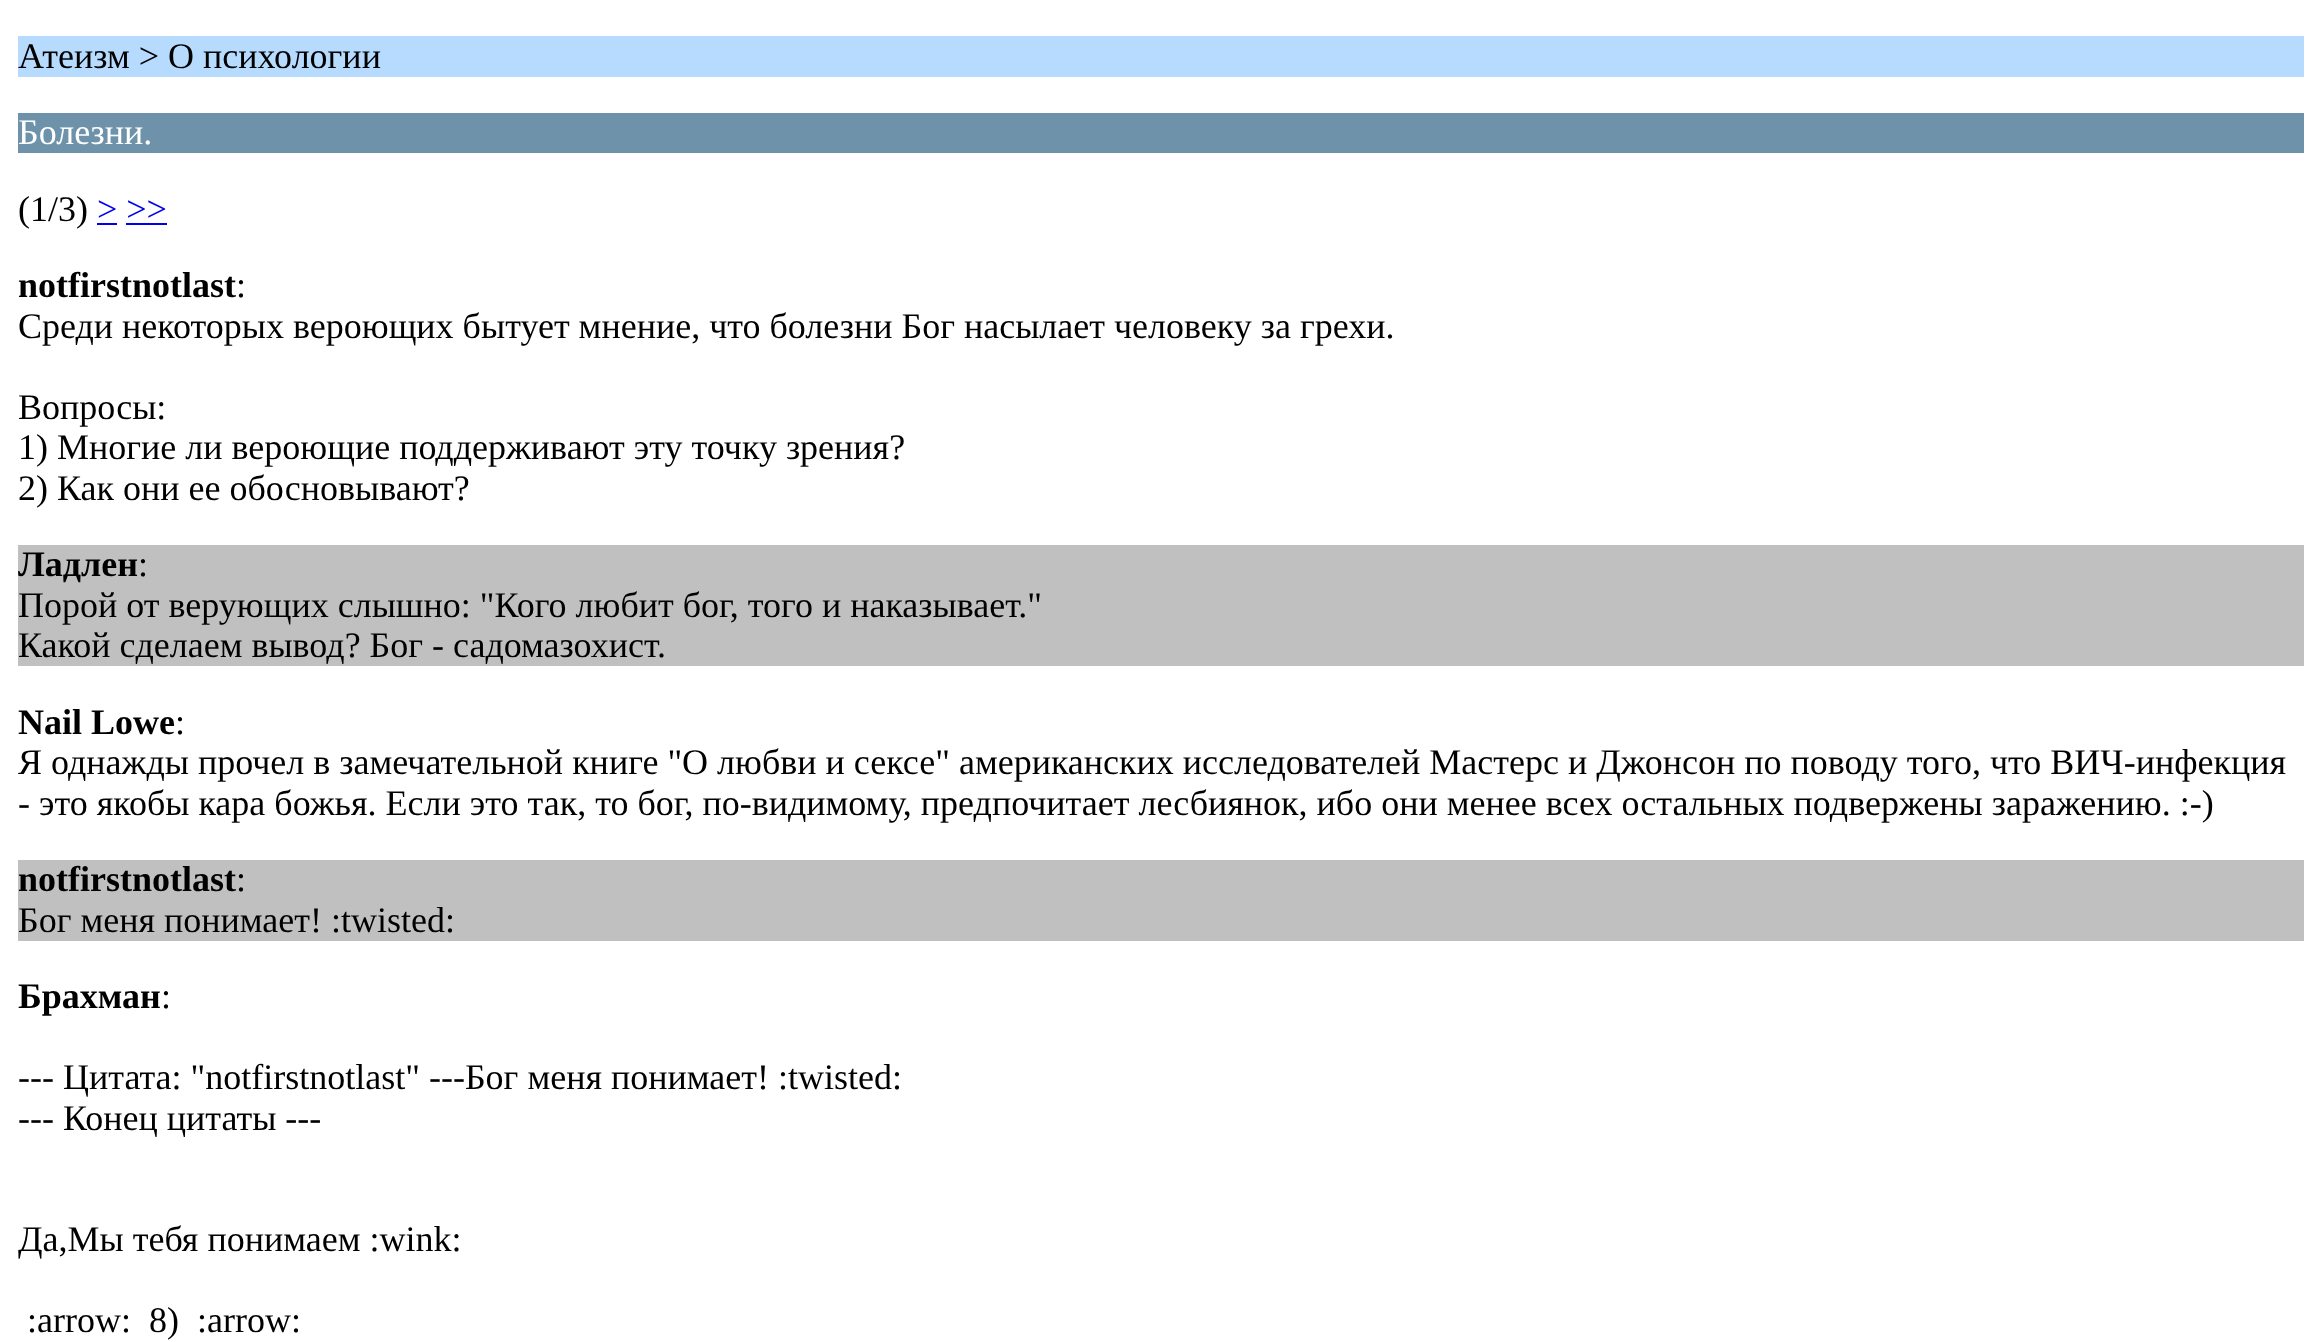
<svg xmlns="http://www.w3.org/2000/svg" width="2322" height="1342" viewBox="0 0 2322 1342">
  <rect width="100%" height="100%" fill="rgb(255,255,255)"/>
  <rect x="18" y="36" width="2286" height="41" fill="rgb(182,219,255)"/>
  <text x="18" y="68" font-family="Liberation Serif" font-size="36" fill="rgb(0,0,0)">Атеизм &gt; О психологии</text>
  <rect x="18" y="113" width="2286" height="40" fill="rgb(109,146,170)"/>
  <text x="18" y="144" font-family="Liberation Serif" font-size="36" fill="rgb(255,255,255)">Болезни.</text>
  <text x="18" y="221" font-family="Liberation Serif" font-size="36" fill="rgb(0,0,0)">(1/3)</text>
  <text x="97" y="221" font-family="Liberation Serif" font-size="36" fill="rgb(0,0,238)">&gt; &gt;&gt;</text>
  <rect x="97" y="223" width="20" height="2" fill="rgb(0,0,238)"/>
  <rect x="126" y="223" width="41" height="2" fill="rgb(0,0,238)"/>
  <text x="18" y="297" font-family="Liberation Serif" font-size="36" font-weight="bold" fill="rgb(0,0,0)">notfirstnotlast</text>
  <g font-family="Liberation Serif" font-size="36" fill="rgb(0,0,0)">
    <text x="236" y="297">:</text>
    <text x="18" y="338">Среди некоторых вероющих бытует мнение, что болезни Бог насылает человеку за грехи.</text>
    <text>
      <tspan x="18" y="419">Вопросы:</tspan>
      <tspan x="18" y="459">1) Многие ли вероющие поддерживают эту точку зрения?</tspan>
      <tspan x="18" y="500">2) Как они ее обосновывают?</tspan>
    </text>
  </g>
  <rect x="18" y="545" width="2286" height="121" fill="rgb(192,192,192)"/>
  <text x="18" y="576" font-family="Liberation Serif" font-size="36" font-weight="bold" fill="rgb(0,0,0)">Ладлен</text>
  <g font-family="Liberation Serif" font-size="36" fill="rgb(0,0,0)">
    <text x="138" y="576">:</text>
    <text>
      <tspan x="18" y="617">Порой от верующих слышно: "Кого любит бог, того и наказывает."</tspan>
      <tspan x="18" y="657">Какой сделаем вывод? Бог - садомазохист.</tspan>
    </text>
  </g>
  <text x="18" y="734" font-family="Liberation Serif" font-size="36" font-weight="bold" fill="rgb(0,0,0)">Nail Lowe</text>
  <g font-family="Liberation Serif" font-size="36" fill="rgb(0,0,0)">
    <text x="175" y="734">:</text>
    <text>
      <tspan x="18" y="774">Я однажды прочел в замечательной книге "О любви и сексе" американских исследователей Мастерс и Джонсон по поводу того, что ВИЧ-инфекция</tspan>
      <tspan x="18" y="815">- это якобы кара божья. Если это так, то бог, по-видимому, предпочитает лесбиянок, ибо они менее всех остальных подвержены заражению. :-)</tspan>
    </text>
  </g>
  <rect x="18" y="860" width="2286" height="81" fill="rgb(192,192,192)"/>
  <text x="18" y="891" font-family="Liberation Serif" font-size="36" font-weight="bold" fill="rgb(0,0,0)">notfirstnotlast</text>
  <g font-family="Liberation Serif" font-size="36" fill="rgb(0,0,0)">
    <text x="236" y="891">:</text>
    <text x="18" y="932">Бог меня понимает! :twisted:</text>
  </g>
  <text x="18" y="1008" font-family="Liberation Serif" font-size="36" font-weight="bold" fill="rgb(0,0,0)">Брахман</text>
  <g font-family="Liberation Serif" font-size="36" fill="rgb(0,0,0)">
    <text x="161" y="1008">:</text>
    <text>
      <tspan x="18" y="1089">--- Цитата: "notfirstnotlast" ---Бог меня понимает! :twisted:</tspan>
      <tspan x="18" y="1130">--- Конец цитаты ---</tspan>
    </text>
    <text x="18" y="1251">Да,Мы тебя понимаем :wink:</text>
    <text x="27" y="1332" xml:space="preserve">:arrow:  8)  :arrow:</text>
  </g>
</svg>
